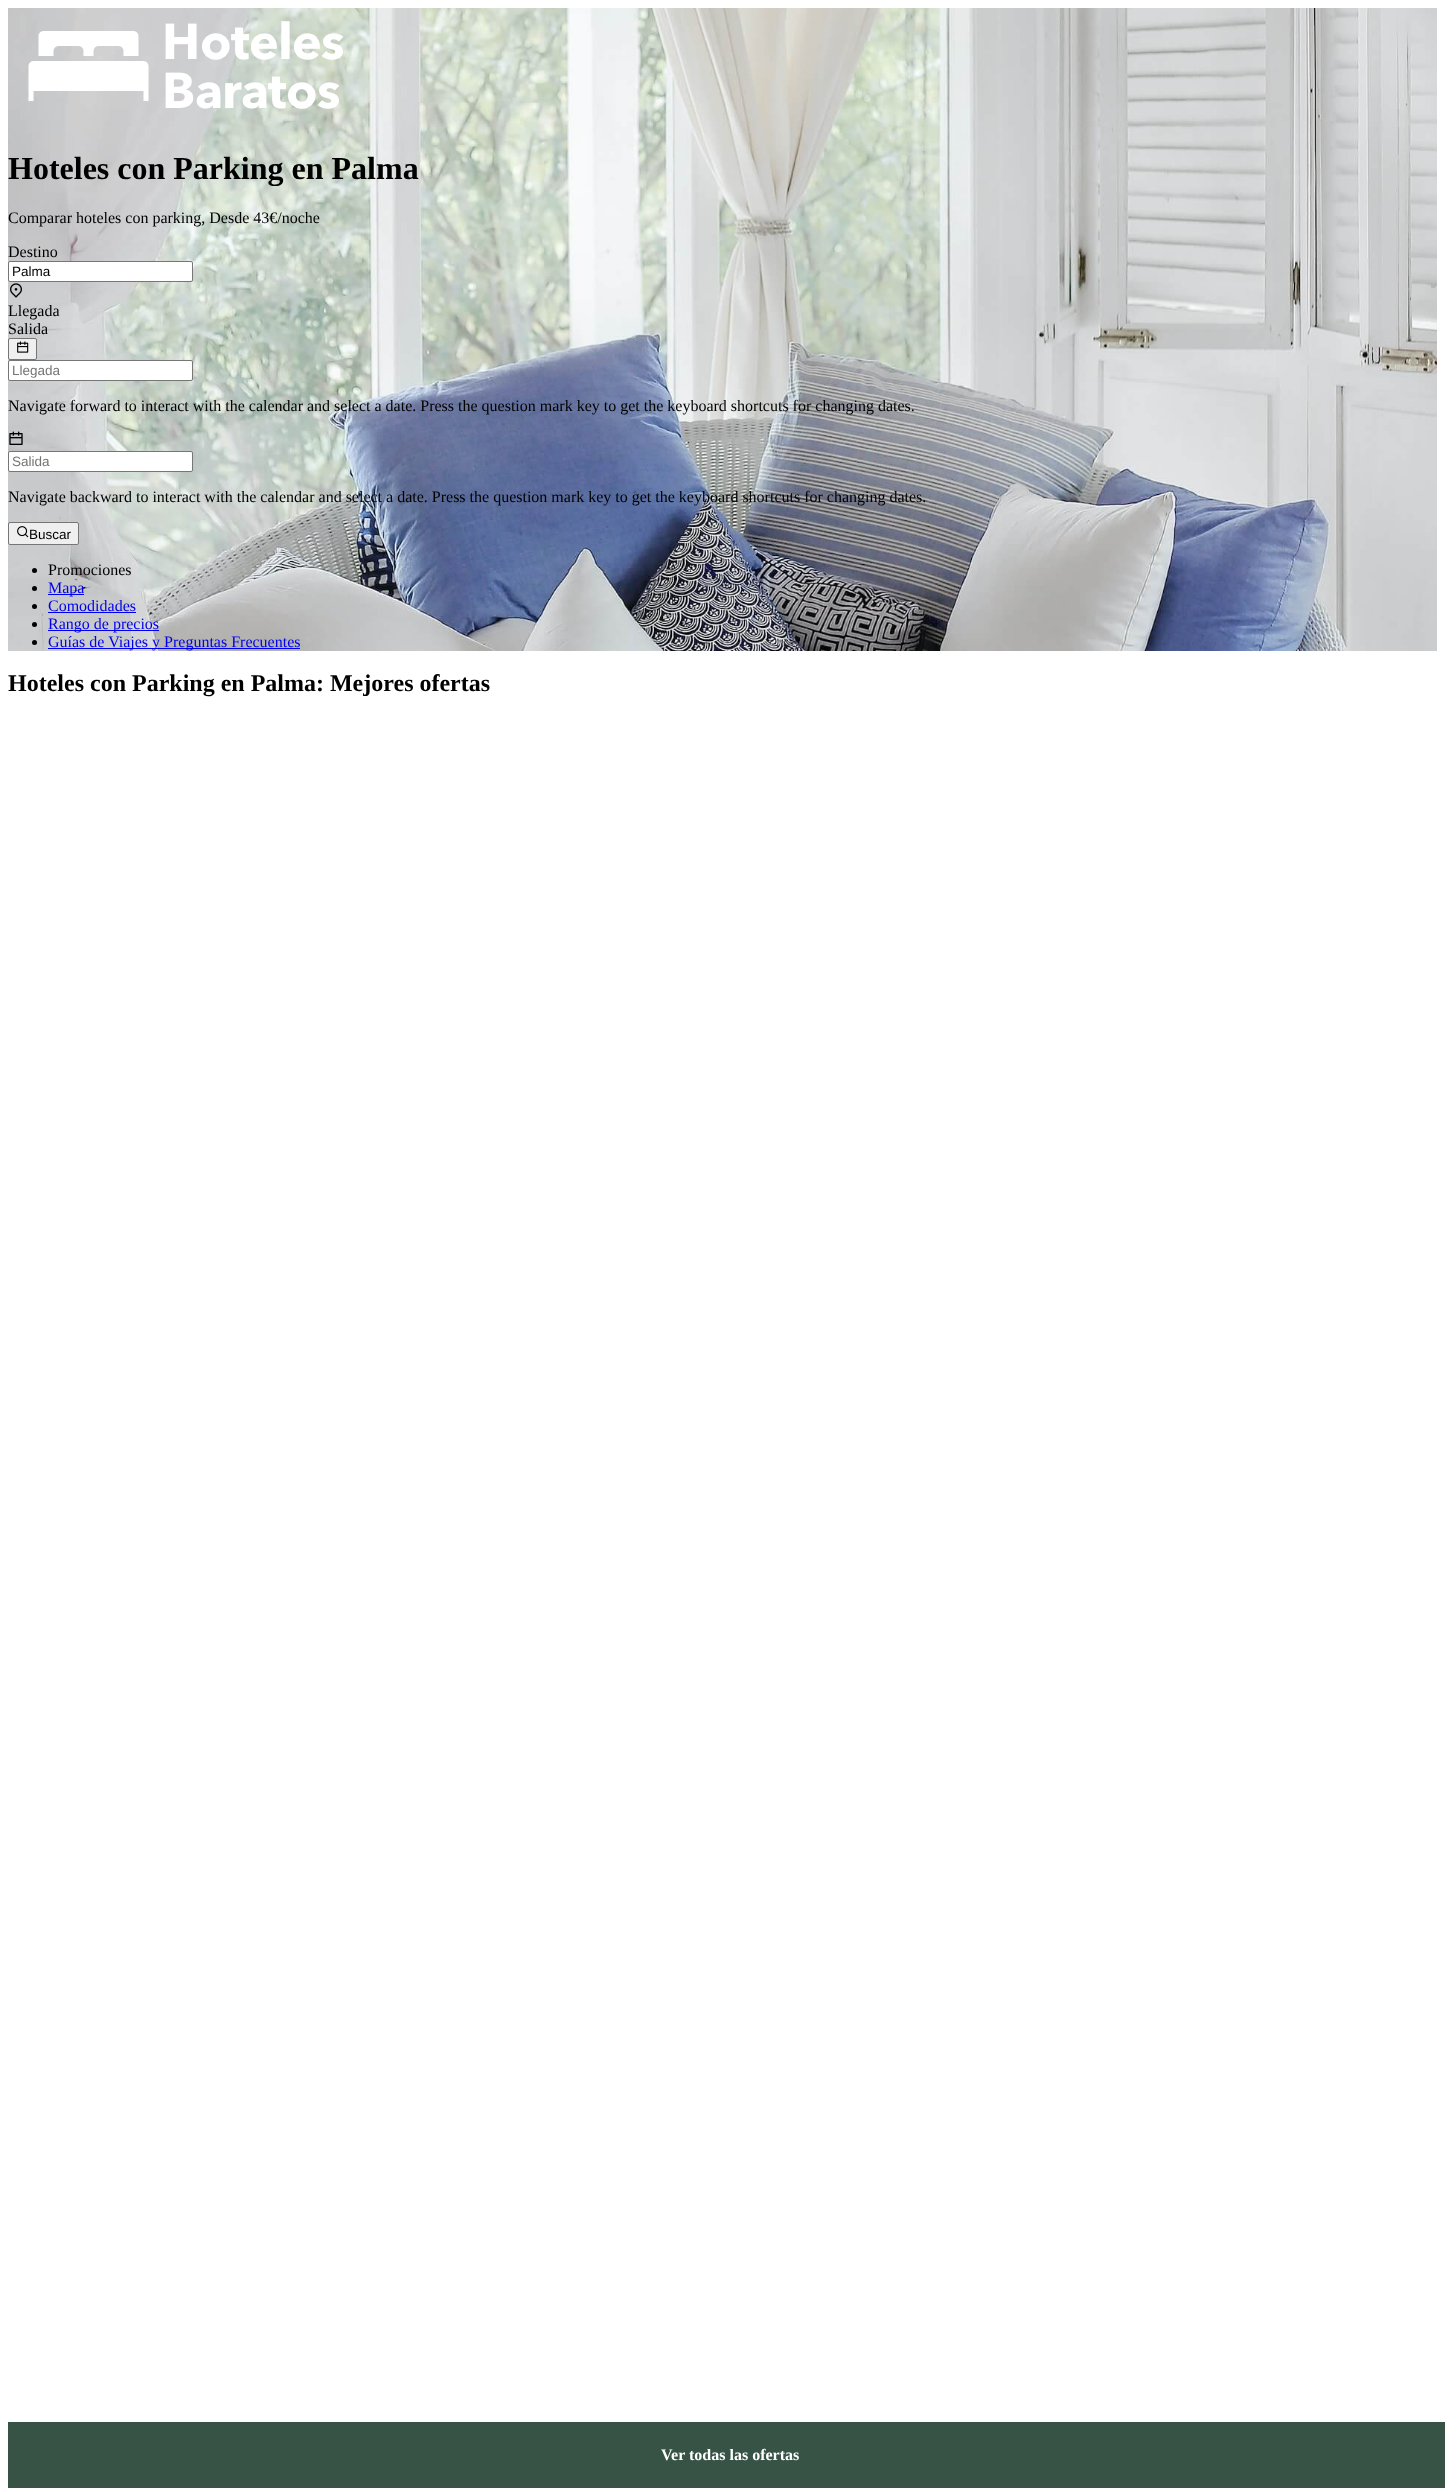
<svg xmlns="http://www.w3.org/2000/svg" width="1445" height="2488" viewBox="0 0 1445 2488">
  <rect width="100%" height="100%" fill="rgb(255,255,255)"/>
  <image x="8" y="8" width="1429" height="643" href="pic1.png"/>
  <image x="28" y="21" width="316" height="88" href="pic2.png"/>
  <text x="8" y="179" font-family="Liberation Serif" font-size="32" font-weight="bold" fill="rgb(0,0,0)">Hoteles con Parking en Palma</text>
  <g font-family="Liberation Serif" font-size="16" fill="rgb(0,0,0)">
    <text x="8" y="223">Comparar hoteles con parking, Desde 43€/noche</text>
    <text x="8" y="257">Destino</text>
  </g>
  <rect x="8.5" y="261.5" width="184" height="20" rx="1.5" fill="rgb(255,255,255)" stroke="rgb(118,118,118)"/>
  <text x="12" y="276" font-family="Liberation Sans" font-size="13.5" fill="rgb(0,0,0)">Palma</text>
  <image x="10" y="283" width="12" height="15" href="pic3.png"/>
  <g font-family="Liberation Serif" font-size="16" fill="rgb(0,0,0)">
    <text>
      <tspan x="8" y="316">Llegada</tspan>
      <tspan x="8" y="334">Salida</tspan>
    </text>
  </g>
  <rect x="8.5" y="338.5" width="28" height="21" rx="1.5" fill="rgb(239,239,239)" stroke="rgb(118,118,118)"/>
  <image x="17" y="341" width="12" height="12" href="pic4.png"/>
  <rect x="8.5" y="360.5" width="184" height="20" rx="1.5" fill="rgb(255,255,255)" stroke="rgb(118,118,118)"/>
  <text x="12" y="375" font-family="Liberation Sans" font-size="13.5" fill="rgb(117,117,117)">Llegada</text>
  <text x="8" y="411" font-family="Liberation Serif" font-size="16" fill="rgb(0,0,0)">Navigate forward to interact with the calendar and select a date. Press the question mark key to get the keyboard shortcuts for changing dates.</text>
  <image x="9" y="431" width="14" height="14" href="pic5.png"/>
  <rect x="8.5" y="451.5" width="184" height="20" rx="1.5" fill="rgb(255,255,255)" stroke="rgb(118,118,118)"/>
  <text x="12" y="466" font-family="Liberation Sans" font-size="13.5" fill="rgb(117,117,117)">Salida</text>
  <text x="8" y="502" font-family="Liberation Serif" font-size="16" fill="rgb(0,0,0)">Navigate backward to interact with the calendar and select a date. Press the question mark key to get the keyboard shortcuts for changing dates.</text>
  <rect x="8.5" y="522.5" width="70" height="22" rx="1.5" fill="rgb(239,239,239)" stroke="rgb(118,118,118)"/>
  <image x="17" y="526" width="12" height="12" href="pic6.png"/>
  <text x="29" y="539" font-family="Liberation Sans" font-size="13.5" fill="rgb(0,0,0)">Buscar</text>
  <circle cx="34.5" cy="570.5" r="2.5" fill="rgb(0,0,0)"/>
  <text x="48" y="575" font-family="Liberation Serif" font-size="16" fill="rgb(0,0,0)">Promociones</text>
  <circle cx="34.5" cy="588.5" r="2.5" fill="rgb(0,0,0)"/>
  <rect x="48" y="594" width="36" height="1" fill="rgb(0,0,238)"/>
  <text x="48" y="593" font-family="Liberation Serif" font-size="16" fill="rgb(0,0,238)">Mapa</text>
  <circle cx="34.5" cy="606.5" r="2.5" fill="rgb(0,0,0)"/>
  <text x="48" y="611" font-family="Liberation Serif" font-size="16" fill="rgb(0,0,238)">Comodidades</text>
  <rect x="48" y="612" width="88" height="1" fill="rgb(0,0,238)"/>
  <circle cx="34.5" cy="624.5" r="2.5" fill="rgb(0,0,0)"/>
  <rect x="48" y="630" width="111" height="1" fill="rgb(0,0,238)"/>
  <text x="48" y="629" font-family="Liberation Serif" font-size="16" fill="rgb(0,0,238)">Rango de precios</text>
  <circle cx="34.5" cy="642.5" r="2.5" fill="rgb(0,0,0)"/>
  <rect x="48" y="648" width="252" height="1" fill="rgb(0,0,238)"/>
  <text x="48" y="647" font-family="Liberation Serif" font-size="16" fill="rgb(0,0,238)">Guías de Viajes y Preguntas Frecuentes</text>
  <text x="8" y="691" font-family="Liberation Serif" font-size="24" font-weight="bold" fill="rgb(0,0,0)">Hoteles con Parking en Palma: Mejores ofertas</text>
  <rect x="8" y="2422" width="1437" height="66" fill="rgb(54,83,70)"/>
  <text x="661" y="2460" font-family="Liberation Serif" font-size="16" font-weight="bold" fill="rgb(255,255,255)">Ver todas las ofertas</text>
</svg>
